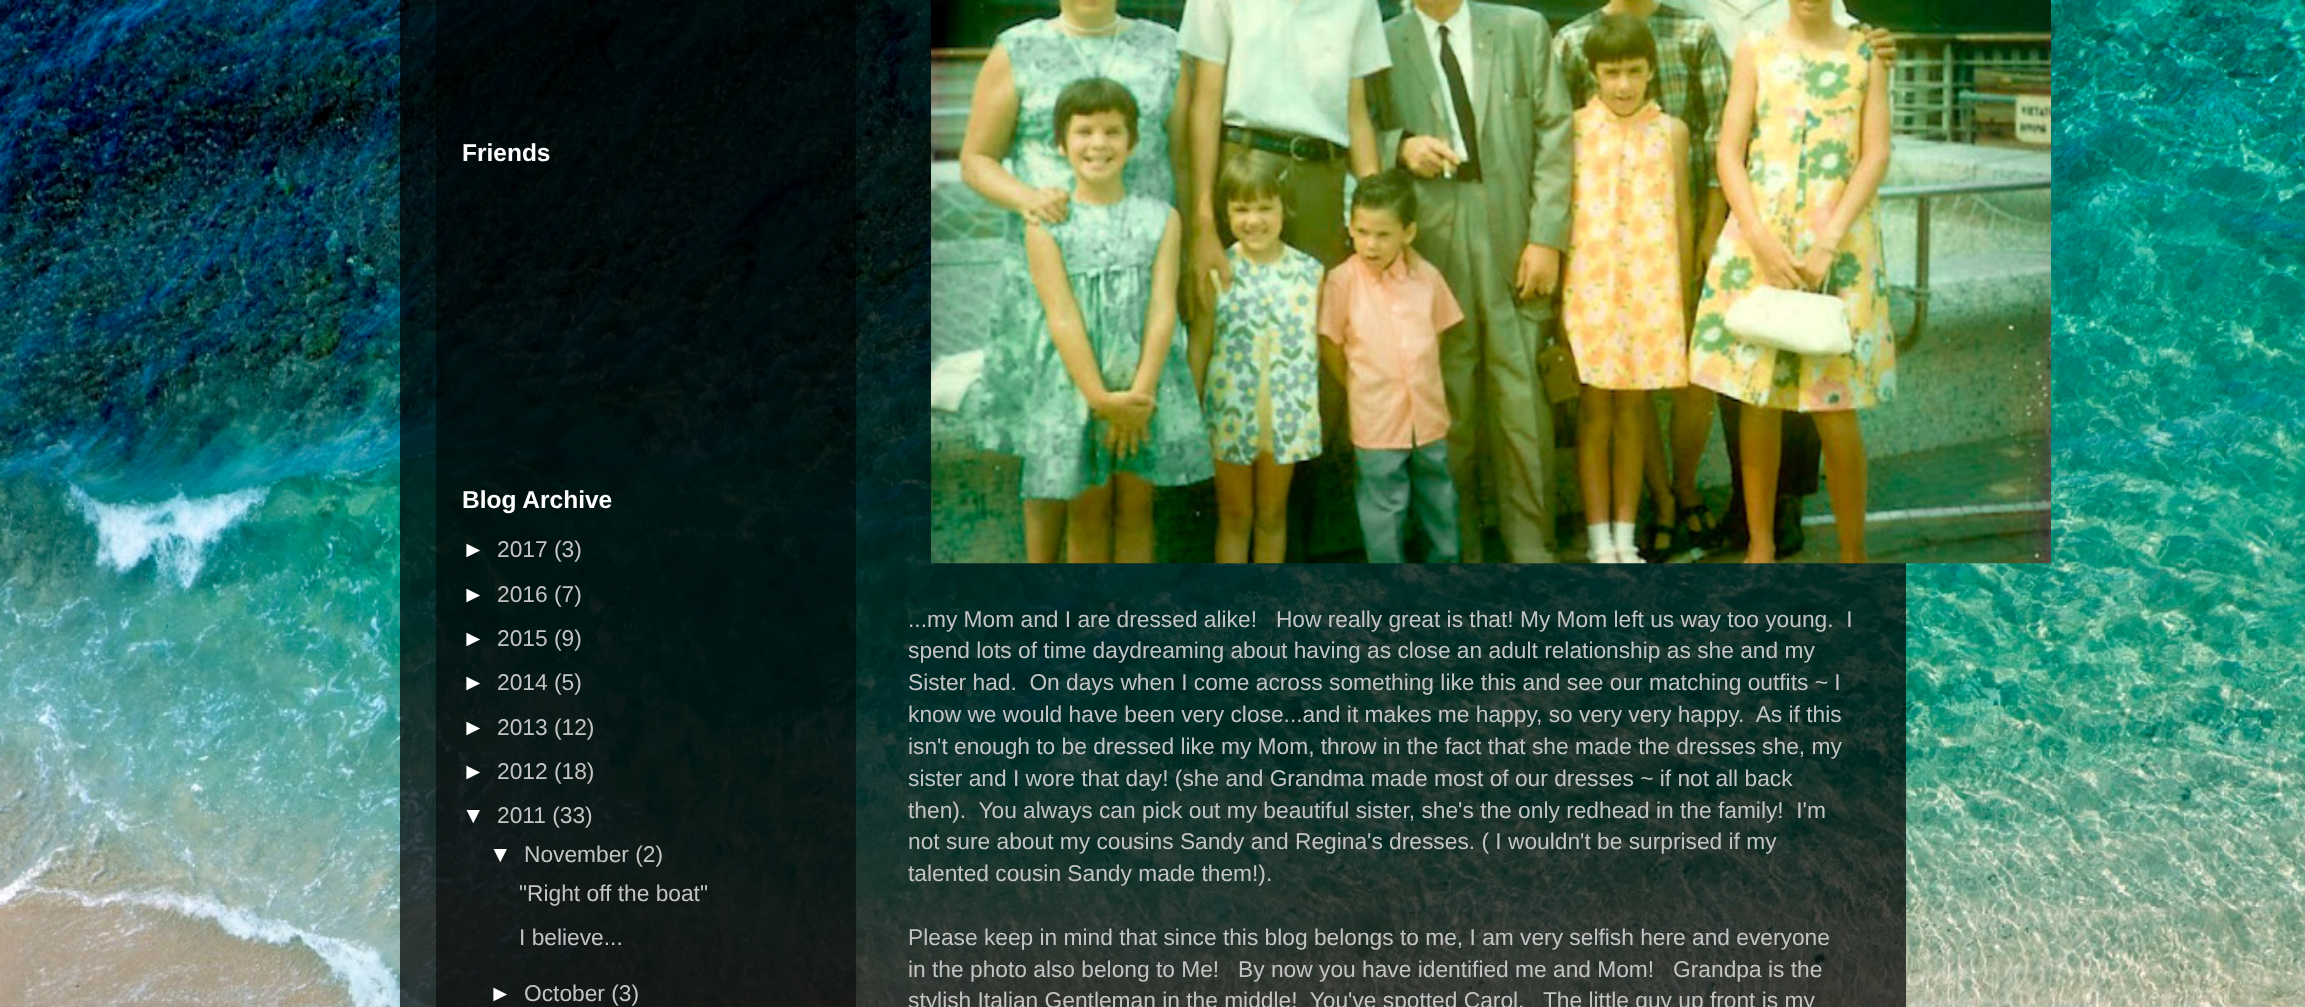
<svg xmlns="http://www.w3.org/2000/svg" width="2305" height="1007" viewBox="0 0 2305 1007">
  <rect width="100%" height="100%" fill="rgb(255,255,255)"/>
  <image x="0" y="0" width="2305" height="1007" href="pic1.png"/>
  <rect x="400" y="0" width="1506" height="1007" fill="rgba(0,0,0,0.7)"/>
  <rect x="436" y="0" width="420" height="1007" fill="rgba(0,0,0,0.5)"/>
  <g font-family="Liberation Sans" font-size="24.5" font-weight="bold" fill="rgb(255,255,255)">
    <text x="462" y="161">Friends</text>
    <text x="462" y="508">Blog Archive</text>
  </g>
  <text x="462" y="557" font-family="Liberation Sans" font-size="22.75" fill="rgb(255,255,255)">►</text>
  <text x="497" y="557" font-family="Liberation Sans" font-size="22.75" fill="rgb(195,195,195)">2017 (3)</text>
  <text x="462" y="602" font-family="Liberation Sans" font-size="22.75" fill="rgb(255,255,255)">►</text>
  <text x="497" y="602" font-family="Liberation Sans" font-size="22.75" fill="rgb(195,195,195)">2016 (7)</text>
  <text x="462" y="646" font-family="Liberation Sans" font-size="22.75" fill="rgb(255,255,255)">►</text>
  <text x="497" y="646" font-family="Liberation Sans" font-size="22.75" fill="rgb(195,195,195)">2015 (9)</text>
  <text x="462" y="690" font-family="Liberation Sans" font-size="22.75" fill="rgb(255,255,255)">►</text>
  <text x="497" y="690" font-family="Liberation Sans" font-size="22.75" fill="rgb(195,195,195)">2014 (5)</text>
  <text x="462" y="735" font-family="Liberation Sans" font-size="22.75" fill="rgb(255,255,255)">►</text>
  <text x="497" y="735" font-family="Liberation Sans" font-size="22.75" fill="rgb(195,195,195)">2013 (12)</text>
  <text x="462" y="779" font-family="Liberation Sans" font-size="22.75" fill="rgb(255,255,255)">►</text>
  <text x="497" y="779" font-family="Liberation Sans" font-size="22.75" fill="rgb(195,195,195)">2012 (18)</text>
  <text x="462" y="823" font-family="Liberation Sans" font-size="22.75" fill="rgb(255,255,255)">▼</text>
  <text x="497" y="823" font-family="Liberation Sans" font-size="22.75" fill="rgb(195,195,195)">2011 (33)</text>
  <text x="489" y="862" font-family="Liberation Sans" font-size="22.75" fill="rgb(255,255,255)">▼</text>
  <g font-family="Liberation Sans" font-size="22.75" fill="rgb(195,195,195)">
    <text x="524" y="862">November (2)</text>
    <text>
      <tspan x="519" y="901">"Right off the boat"</tspan>
      <tspan x="519" y="945">I believe...</tspan>
    </text>
  </g>
  <text x="489" y="1001" font-family="Liberation Sans" font-size="22.75" fill="rgb(255,255,255)">►</text>
  <text x="524" y="1001" font-family="Liberation Sans" font-size="22.75" fill="rgb(195,195,195)">October (3)</text>
  <image x="931" y="0" width="1120" height="564" href="pic2.png"/>
  <g font-family="Liberation Sans" font-size="22.75" fill="rgb(195,195,195)">
    <text xml:space="preserve"><tspan x="908" y="627">...my Mom and I are dressed alike!   How really great is that! My Mom left us way too young.  I</tspan><tspan x="908" y="658">spend lots of time daydreaming about having as close an adult relationship as she and my</tspan><tspan x="908" y="690">Sister had.  On days when I come across something like this and see our matching outfits ~ I</tspan><tspan x="908" y="722">know we would have been very close...and it makes me happy, so very very happy.  As if this</tspan><tspan x="908" y="754">isn't enough to be dressed like my Mom, throw in the fact that she made the dresses she, my</tspan><tspan x="908" y="786">sister and I wore that day! (she and Grandma made most of our dresses ~ if not all back</tspan><tspan x="908" y="818">then).  You always can pick out my beautiful sister, she's the only redhead in the family!  I'm</tspan><tspan x="908" y="849">not sure about my cousins Sandy and Regina's dresses. ( I wouldn't be surprised if my</tspan><tspan x="908" y="881">talented cousin Sandy made them!).</tspan></text>
    <text xml:space="preserve"><tspan x="908" y="945">Please keep in mind that since this blog belongs to me, I am very selfish here and everyone</tspan><tspan x="908" y="977">in the photo also belong to Me!   By now you have identified me and Mom!   Grandpa is the</tspan><tspan x="908" y="1008">stylish Italian Gentleman in the middle!  You've spotted Carol.   The little guy up front is my</tspan></text>
  </g>
</svg>
